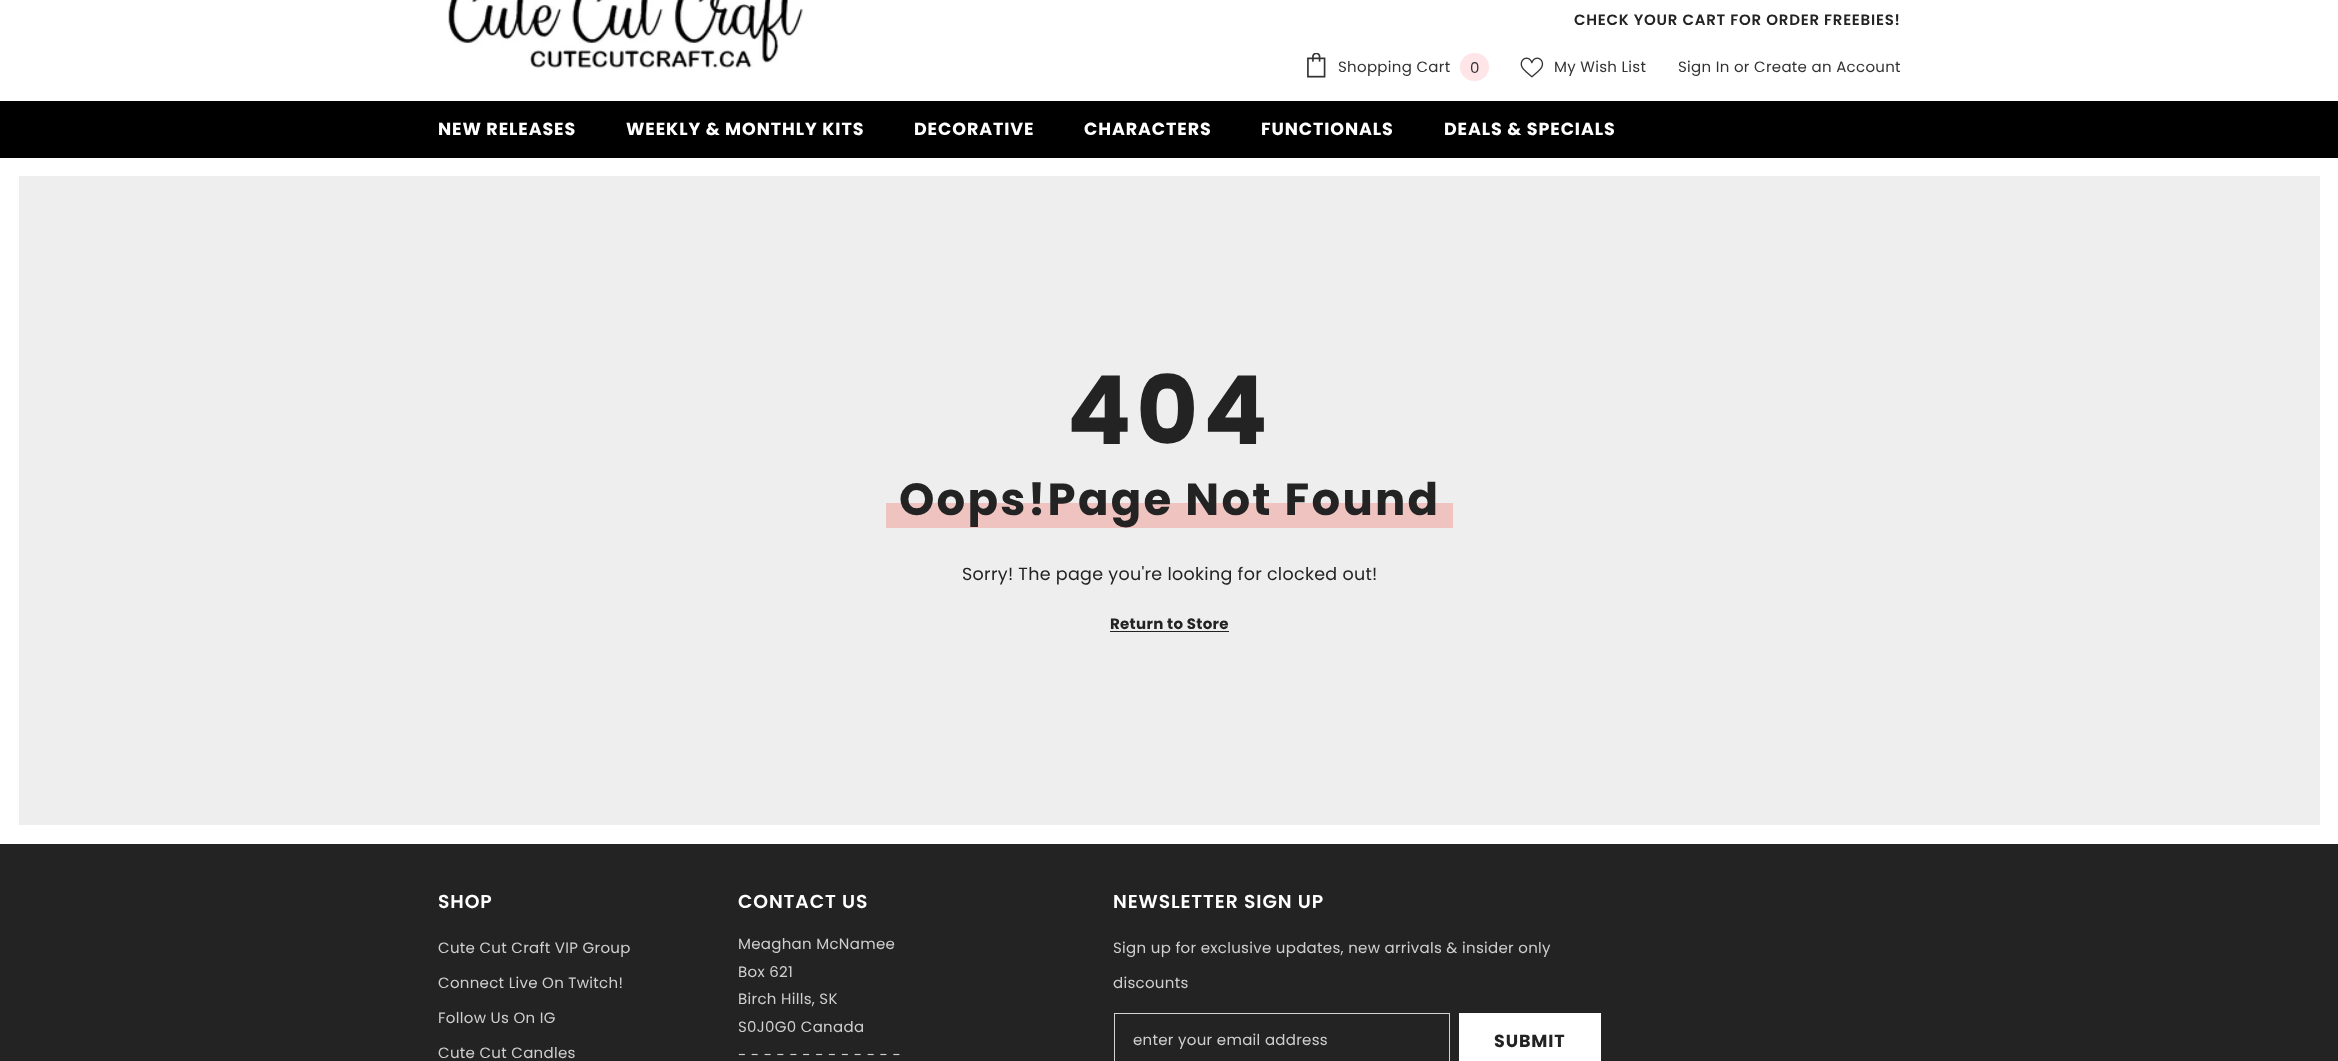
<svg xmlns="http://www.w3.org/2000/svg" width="2338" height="1061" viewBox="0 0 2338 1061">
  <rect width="100%" height="100%" fill="rgb(255,255,255)"/>
  <image x="448" y="0" width="355" height="69" href="pic1.png"/>
  <text x="1574" y="25" font-family="Poppins" font-size="15" font-weight="600" letter-spacing="0.75" fill="rgb(35,35,35)">CHECK YOUR CART FOR ORDER FREEBIES!</text>
  <image x="1307" y="53" width="19" height="25" href="pic2.png"/>
  <text x="1338" y="72" font-family="Poppins" font-size="15" letter-spacing="0.3" fill="rgb(50,50,50)">Shopping Cart</text>
  <rect x="1460" y="53" width="29" height="28" rx="14" fill="rgb(255,229,232)"/>
  <text x="1470" y="73" font-family="Poppins" font-size="15" fill="rgb(50,50,50)">0</text>
  <image x="1520" y="57" width="24" height="21" href="pic3.png"/>
  <g font-family="Poppins" font-size="15" letter-spacing="0.3" fill="rgb(50,50,50)">
    <text x="1554" y="72">My Wish List</text>
    <text x="1678" y="72">Sign In or Create an Account</text>
  </g>
  <rect x="0" y="101" width="2338" height="57" fill="rgb(0,0,0)"/>
  <g font-family="Poppins" font-size="17.5" font-weight="bold" letter-spacing="0.9" fill="rgb(255,255,255)">
    <text x="438" y="135">NEW RELEASES</text>
    <text x="626" y="135">WEEKLY &amp; MONTHLY KITS</text>
    <text x="914" y="135">DECORATIVE</text>
    <text x="1084" y="135">CHARACTERS</text>
    <text x="1261" y="135">FUNCTIONALS</text>
    <text x="1444" y="135">DEALS &amp; SPECIALS</text>
  </g>
  <rect x="19" y="176" width="2301" height="649" fill="rgb(238,238,238)"/>
  <text x="1067" y="444" font-family="Poppins" font-size="95" font-weight="bold" letter-spacing="5" fill="rgb(35,35,35)">404</text>
  <rect x="886" y="503" width="567" height="25" fill="rgb(239,195,192)"/>
  <text x="899" y="515" font-family="Poppins" font-size="45" font-weight="bold" letter-spacing="2.25" fill="rgb(35,35,35)">Oops!Page Not Found</text>
  <text x="962" y="580" font-family="Poppins" font-size="17.5" letter-spacing="0.3" fill="rgb(35,35,35)">Sorry! The page you're looking for clocked out!</text>
  <text x="1110" y="629" font-family="Poppins" font-size="15" font-weight="bold" letter-spacing="0.3" fill="rgb(35,35,35)">Return to Store</text>
  <rect x="1110" y="631" width="119" height="1" fill="rgb(35,35,35)"/>
  <rect x="0" y="844" width="2338" height="217" fill="rgb(35,35,35)"/>
  <text x="438" y="908" font-family="Poppins" font-size="18.75" font-weight="600" letter-spacing="0.9" fill="rgb(255,255,255)">SHOP</text>
  <g font-family="Poppins" font-size="15" letter-spacing="0.3" fill="rgb(207,207,207)">
    <text x="438" y="953">Cute Cut Craft VIP Group</text>
    <text x="438" y="988">Connect Live On Twitch!</text>
    <text x="438" y="1023">Follow Us On IG</text>
    <text x="438" y="1058">Cute Cut Candles</text>
  </g>
  <text x="738" y="908" font-family="Poppins" font-size="18.75" font-weight="600" letter-spacing="0.9" fill="rgb(255,255,255)">CONTACT US</text>
  <g font-family="Poppins" font-size="15" letter-spacing="0.3" fill="rgb(207,207,207)">
    <text>
      <tspan x="738" y="949">Meaghan McNamee</tspan>
      <tspan x="738" y="977">Box 621</tspan>
      <tspan x="738" y="1004">Birch Hills, SK</tspan>
      <tspan x="738" y="1032">S0J0G0 Canada</tspan>
      <tspan x="738" y="1060">- - - - - - - - - - - - -</tspan>
    </text>
  </g>
  <text x="1113" y="908" font-family="Poppins" font-size="18.75" font-weight="600" letter-spacing="0.9" fill="rgb(255,255,255)">NEWSLETTER SIGN UP</text>
  <g font-family="Poppins" font-size="15" letter-spacing="0.3" fill="rgb(207,207,207)">
    <text x="1113" y="953">Sign up for exclusive updates, new arrivals &amp; insider only</text>
    <text x="1113" y="988">discounts</text>
  </g>
  <rect x="1114.5" y="1013.5" width="335" height="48" fill="none" stroke="rgb(211,211,211)"/>
  <text x="1133" y="1045" font-family="Poppins" font-size="15" letter-spacing="0.3" fill="rgb(207,207,207)">enter your email address</text>
  <rect x="1459" y="1013" width="142" height="48" fill="rgb(255,255,255)"/>
  <text x="1494" y="1047" font-family="Poppins" font-size="17.5" font-weight="bold" letter-spacing="0.9" fill="rgb(35,35,35)">SUBMIT</text>
</svg>
